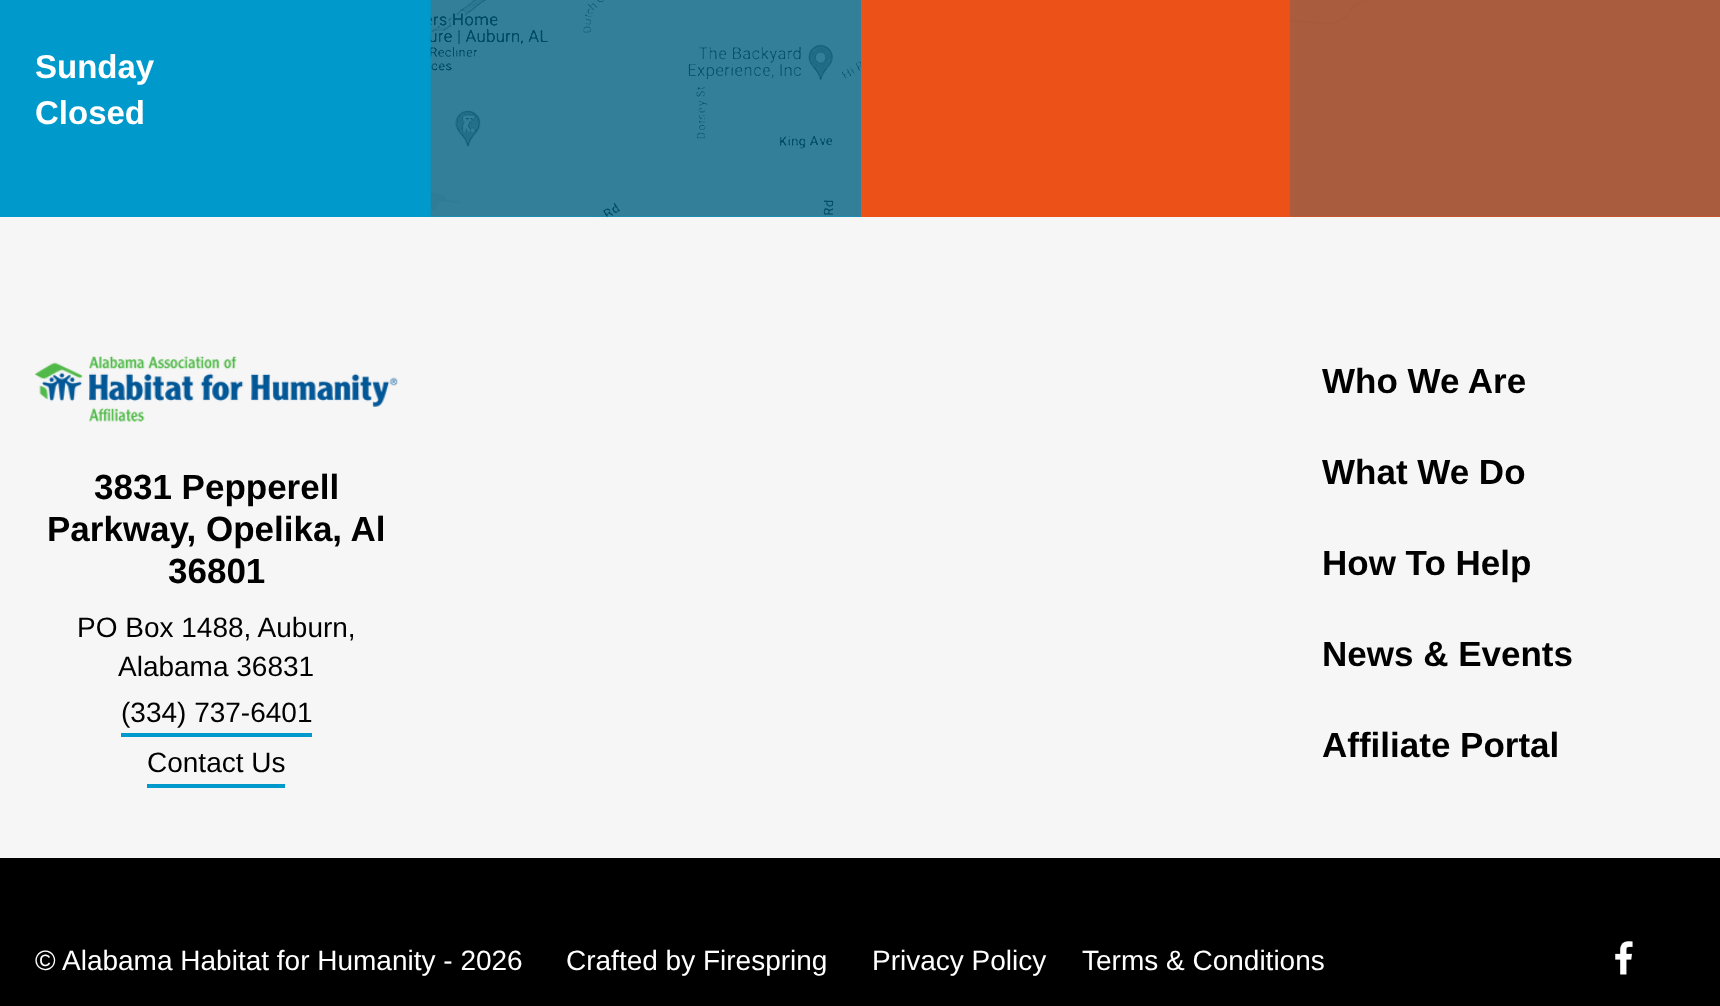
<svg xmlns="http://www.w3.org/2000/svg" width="1720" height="1006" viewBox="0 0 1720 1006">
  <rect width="100%" height="100%" fill="rgb(0,153,204)"/>
  <g font-family="Liberation Sans" font-size="33" font-weight="bold" fill="rgb(255,255,255)">
    <text>
      <tspan x="35" y="78">Sunday</tspan>
      <tspan x="35" y="124">Closed</tspan>
    </text>
  </g>
  <image x="430" y="0" width="431" height="217" href="pic1.png"/>
  <rect x="861" y="0" width="859" height="217" fill="rgb(236,82,23)"/>
  <image x="1289" y="0" width="431" height="217" href="pic2.png"/>
  <rect x="0" y="217" width="1720" height="641" fill="rgb(246,246,246)"/>
  <image x="35" y="356" width="363" height="66" href="pic3.png"/>
  <g font-family="Liberation Sans" font-size="35" font-weight="bold" fill="rgb(0,0,0)">
    <text x="94" y="499">3831 Pepperell</text>
    <text x="47" y="541">Parkway, Opelika, Al</text>
    <text x="168" y="583">36801</text>
  </g>
  <g font-family="Liberation Sans" font-size="28" fill="rgb(0,0,0)">
    <text x="77" y="637">PO Box 1488, Auburn,</text>
    <text x="118" y="676">Alabama 36831</text>
  </g>
  <rect x="121" y="733" width="191" height="4" fill="rgb(0,153,204)"/>
  <text x="121" y="722" font-family="Liberation Sans" font-size="28" fill="rgb(0,0,0)">(334) 737-6401</text>
  <rect x="147" y="784" width="138" height="4" fill="rgb(0,153,204)"/>
  <text x="147" y="772" font-family="Liberation Sans" font-size="28" fill="rgb(0,0,0)">Contact Us</text>
  <g font-family="Liberation Sans" font-size="35" font-weight="bold" fill="rgb(0,0,0)">
    <text x="1322" y="393">Who We Are</text>
    <text x="1322" y="484">What We Do</text>
    <text x="1322" y="575">How To Help</text>
    <text x="1322" y="666">News &amp; Events</text>
    <text x="1322" y="757">Affiliate Portal</text>
  </g>
  <rect x="0" y="858" width="1720" height="148" fill="rgb(0,0,0)"/>
  <g font-family="Liberation Sans" font-size="28" fill="rgb(255,255,255)">
    <text x="35" y="970">©</text>
    <text x="62" y="970">Alabama Habitat for Humanity - 2026</text>
    <text x="566" y="970">Crafted by Firespring</text>
    <text x="872" y="970">Privacy Policy</text>
    <text x="1082" y="970">Terms &amp; Conditions</text>
  </g>
  <image x="1615" y="941" width="18" height="34" href="pic4.png"/>
</svg>
